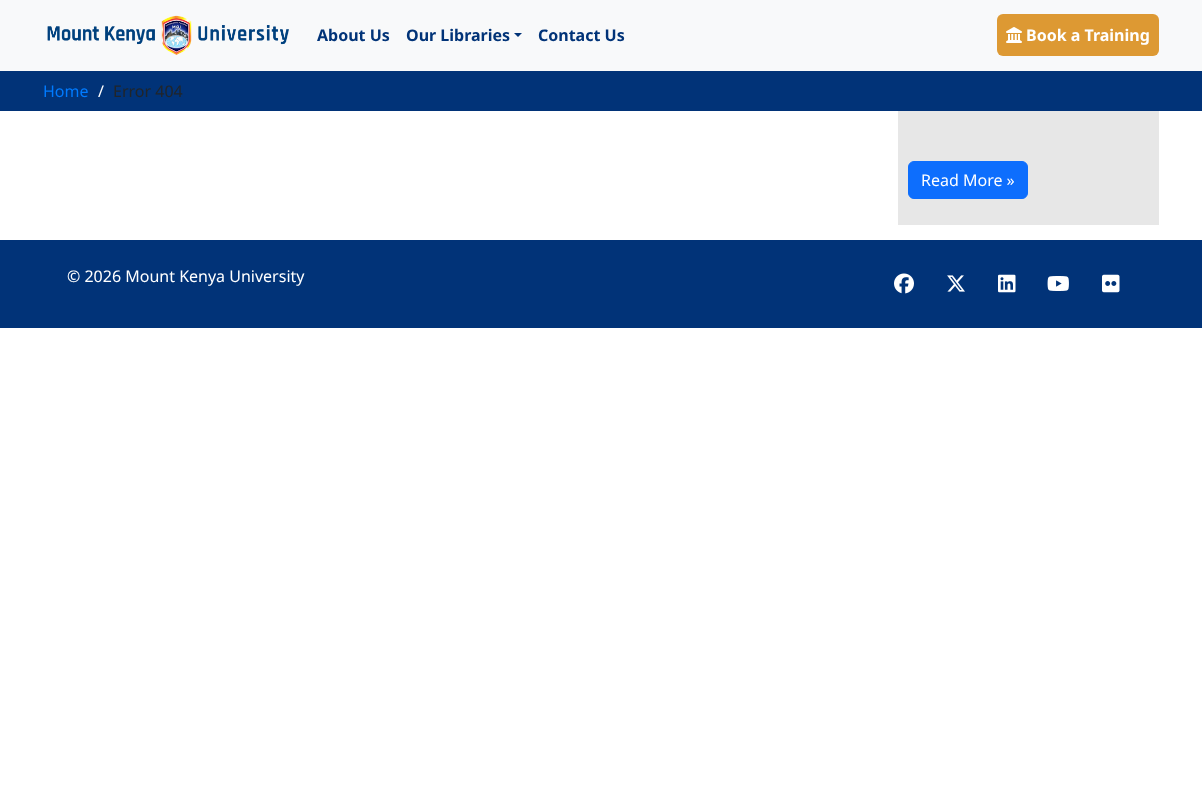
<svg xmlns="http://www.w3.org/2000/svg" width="1202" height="793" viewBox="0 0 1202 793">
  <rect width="100%" height="100%" fill="rgb(255,255,255)"/>
  <rect x="0" y="0" width="1202" height="71" fill="rgb(248,249,250)"/>
  <image x="47" y="15" width="242" height="40" href="pic1.png"/>
  <g font-family="Noto Sans" font-size="16" font-weight="bold" fill="rgb(1,51,120)">
    <text x="317" y="41">About Us</text>
    <text x="406" y="41">Our Libraries</text>
  </g>
  <path d="M514 33H522L518 37Z" fill="rgb(1,51,120)"/>
  <text x="538" y="41" font-family="Noto Sans" font-size="16" font-weight="bold" fill="rgb(1,51,120)">Contact Us</text>
  <rect x="997" y="14" width="162" height="42" rx="6" fill="rgb(221,153,51)"/>
  <image x="1006" y="27" width="16" height="16" href="pic2.png"/>
  <text x="1026" y="41" font-family="Noto Sans" font-size="16" font-weight="bold" fill="rgb(255,255,255)">Book a Training</text>
  <rect x="0" y="71" width="1202" height="40" fill="rgb(1,51,120)"/>
  <text x="43" y="97" font-family="Noto Sans" font-size="16" fill="rgb(0,123,255)">Home</text>
  <text x="98" y="97" font-family="Noto Sans" font-size="16" fill="rgb(255,255,255)">/</text>
  <text x="113" y="97" font-family="Noto Sans" font-size="16" fill="rgb(33,37,41)">Error 404</text>
  <rect x="898" y="111" width="261" height="114" fill="rgb(231,231,231)"/>
  <rect x="908.5" y="161.5" width="119" height="37" rx="5.5" fill="rgb(13,110,253)" stroke="rgb(13,110,253)"/>
  <text x="921" y="186" font-family="Noto Sans" font-size="16" fill="rgb(255,255,255)">Read More »</text>
  <rect x="0" y="240" width="1202" height="88" fill="rgb(1,51,120)"/>
  <text x="67" y="282" font-family="Noto Sans" font-size="16" fill="rgb(255,255,255)">© 2026 Mount Kenya University</text>
  <image x="894" y="273" width="20" height="21" href="pic3.png"/>
  <image x="947" y="275" width="18" height="17" href="pic4.png"/>
  <image x="998" y="274" width="18" height="19" href="pic5.png"/>
  <image x="1047" y="276" width="22" height="15" href="pic6.png"/>
  <image x="1102" y="274" width="18" height="19" href="pic7.png"/>
</svg>
